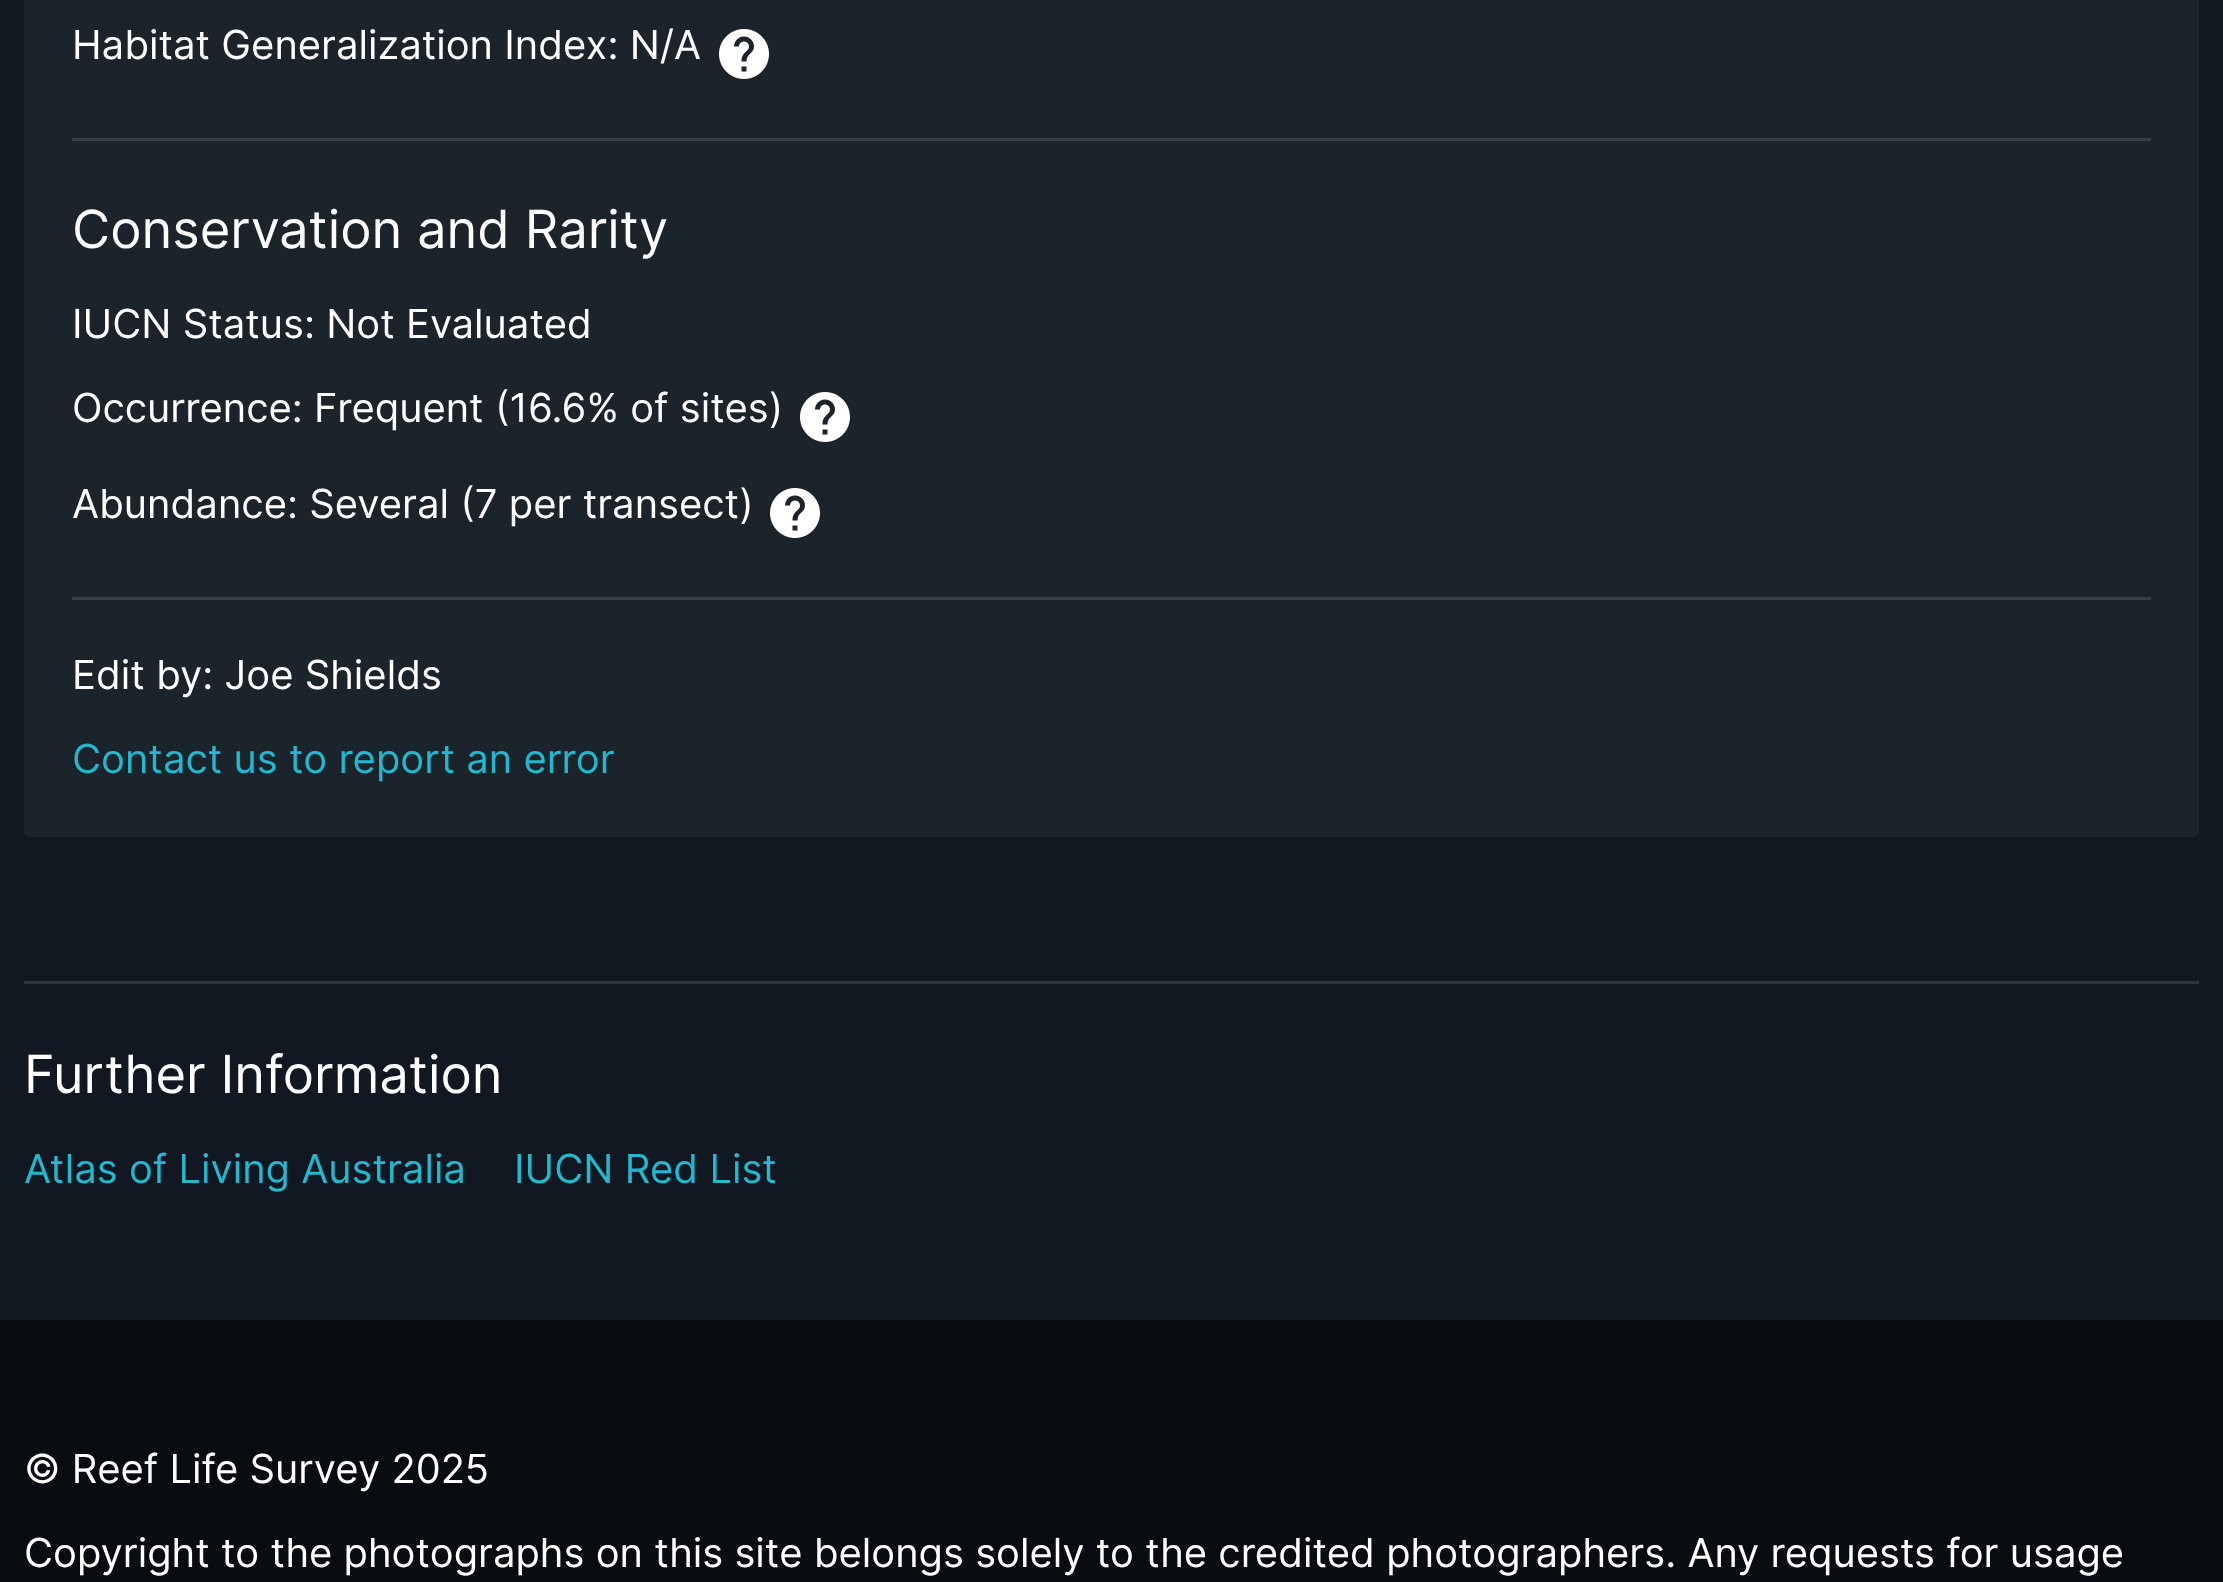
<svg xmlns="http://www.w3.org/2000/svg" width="2223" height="1582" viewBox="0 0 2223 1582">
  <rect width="100%" height="100%" fill="rgb(17,24,33)"/>
  <rect x="24" y="-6" width="2175" height="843" rx="6" fill="rgb(28,36,43)"/>
  <text x="72" y="59" font-family="Inter" font-size="40" fill="rgb(255,255,255)">Habitat Generalization Index: N/A</text>
  <image x="719" y="29" width="50" height="50" href="pic1.png"/>
  <rect x="72" y="138" width="2079" height="3" fill="rgb(55,62,68)"/>
  <text x="72" y="248" font-family="Inter" font-size="52.5" fill="rgb(255,255,255)">Conservation and Rarity</text>
  <g font-family="Inter" font-size="40" fill="rgb(255,255,255)">
    <text x="72" y="338">IUCN Status: Not Evaluated</text>
    <text x="72" y="422">Occurrence: Frequent (16.6% of sites)</text>
  </g>
  <image x="800" y="392" width="50" height="50" href="pic1.png"/>
  <text x="72" y="518" font-family="Inter" font-size="40" fill="rgb(255,255,255)">Abundance: Several (7 per transect)</text>
  <image x="770" y="488" width="50" height="50" href="pic1.png"/>
  <rect x="72" y="597" width="2079" height="3" fill="rgb(55,62,68)"/>
  <text x="72" y="689" font-family="Inter" font-size="40" fill="rgb(255,255,255)">Edit by: Joe Shields</text>
  <text x="72" y="773" font-family="Inter" font-size="40" fill="rgb(34,184,207)">Contact us to report an error</text>
  <rect x="24" y="981" width="2175" height="3" fill="rgb(46,52,60)"/>
  <text x="24" y="1093" font-family="Inter" font-size="52.5" fill="rgb(255,255,255)">Further Information</text>
  <g font-family="Inter" font-size="40" fill="rgb(34,184,207)">
    <text x="24" y="1183">Atlas of Living Australia</text>
    <text x="514" y="1183">IUCN Red List</text>
  </g>
  <rect x="0" y="1320" width="2223" height="262" fill="rgb(9,13,18)"/>
  <g font-family="Inter" font-size="40" fill="rgb(255,255,255)">
    <text x="24" y="1483">© Reef Life Survey 2025</text>
    <text x="24" y="1567">Copyright to the photographs on this site belongs solely to the credited photographers. Any requests for usage</text>
  </g>
</svg>
